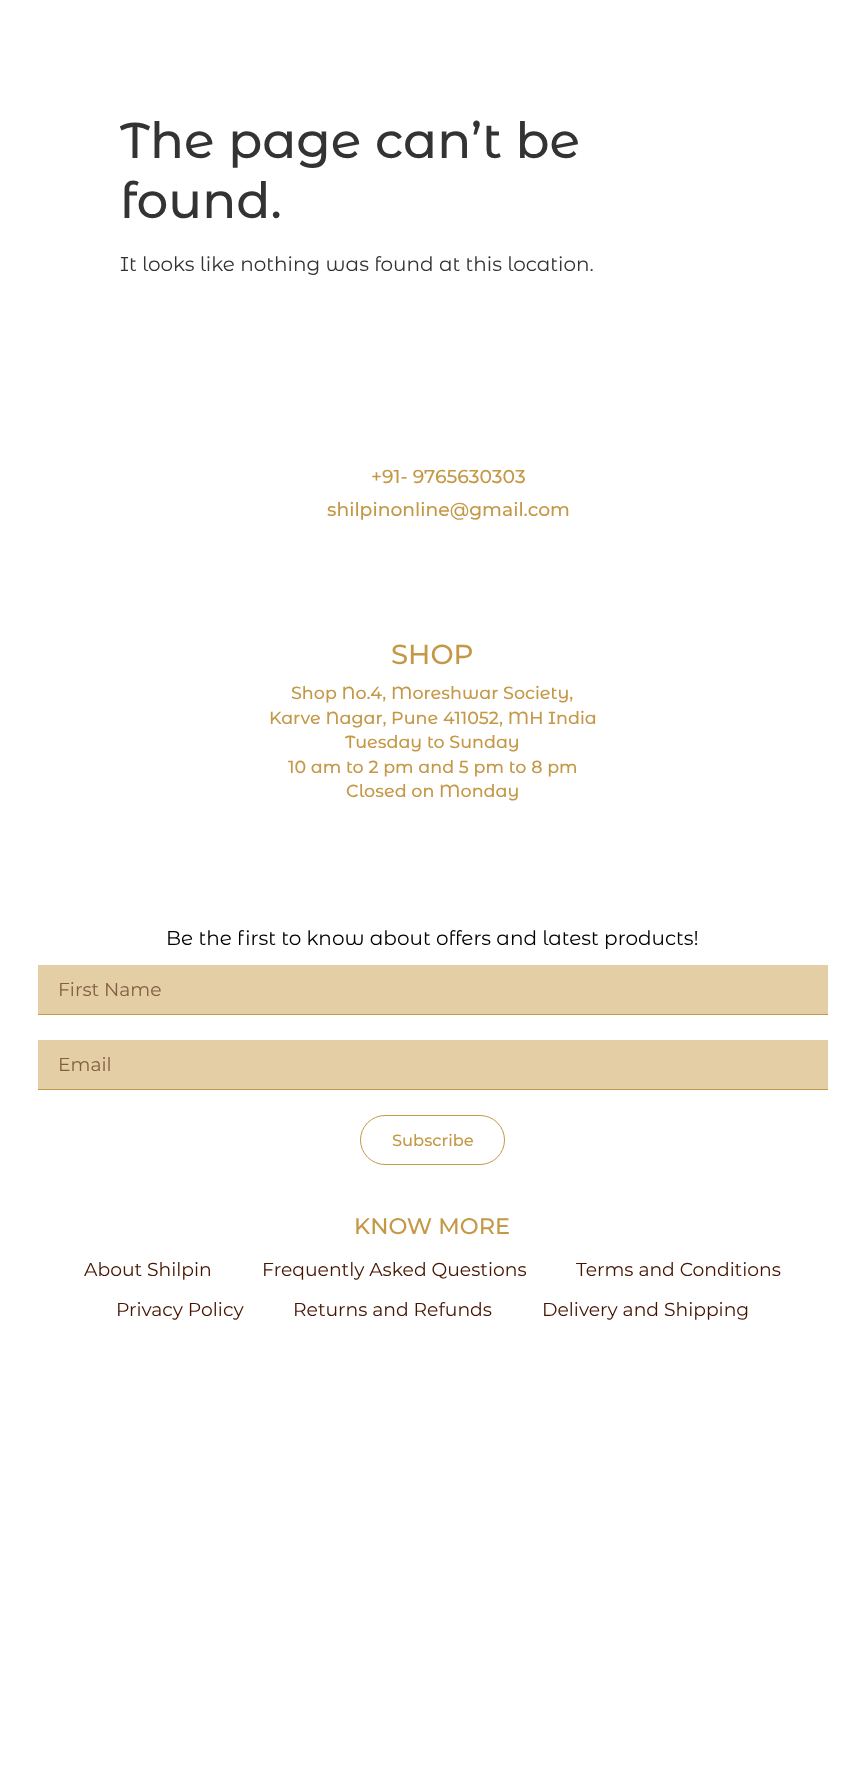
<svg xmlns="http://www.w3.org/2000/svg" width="864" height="1771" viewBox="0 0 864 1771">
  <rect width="100%" height="100%" fill="rgb(255,255,255)"/>
  <g font-family="Montserrat Alternates" font-size="50" font-weight="500" fill="rgb(51,51,51)">
    <text>
      <tspan x="120" y="158">The page can’t be</tspan>
      <tspan x="120" y="218">found.</tspan>
    </text>
  </g>
  <text x="120" y="271" font-family="Montserrat Alternates" font-size="20" fill="rgb(51,51,51)">It looks like nothing was found at this location.</text>
  <g font-family="Montserrat" font-size="18.75" font-weight="500" fill="rgb(196,152,70)">
    <text x="371" y="483">+91- 9765630303</text>
    <text x="327" y="516">shilpinonline@gmail.com</text>
  </g>
  <text x="391" y="664" font-family="Montserrat" font-size="27.5" font-weight="500" fill="rgb(196,152,70)">SHOP</text>
  <g font-family="Montserrat Alternates" font-size="17.5" font-weight="500" fill="rgb(196,152,70)">
    <text x="291" y="699">Shop No.4, Moreshwar Society,</text>
    <text x="269" y="724">Karve Nagar, Pune 411052, MH India</text>
    <text x="345" y="748">Tuesday to Sunday</text>
    <text x="288" y="773">10 am to 2 pm and 5 pm to 8 pm</text>
    <text x="346" y="797">Closed on Monday</text>
  </g>
  <text x="166" y="945" font-family="Montserrat Alternates" font-size="20" fill="rgb(0,0,0)">Be the first to know about offers and latest products!</text>
  <rect x="38" y="965" width="790" height="49" fill="rgb(227,206,166)"/>
  <rect x="38" y="1014" width="790" height="1" fill="rgb(196,152,70)"/>
  <text x="58" y="996" font-family="Montserrat" font-size="18.75" fill="rgb(132,94,66)">First Name</text>
  <rect x="38" y="1040" width="790" height="49" fill="rgb(227,206,166)"/>
  <rect x="38" y="1089" width="790" height="1" fill="rgb(196,152,70)"/>
  <text x="58" y="1071" font-family="Montserrat" font-size="18.75" fill="rgb(132,94,66)">Email</text>
  <rect x="360.5" y="1115.5" width="144" height="49" rx="24.5" fill="none" stroke="rgb(196,152,70)"/>
  <text x="392" y="1146" font-family="Montserrat" font-size="16.25" font-weight="500" fill="rgb(196,152,70)">Subscribe</text>
  <text x="354" y="1234" font-family="Montserrat" font-size="22.5" font-weight="500" fill="rgb(196,152,70)">KNOW MORE</text>
  <g font-family="Montserrat" font-size="18.75" fill="rgb(69,20,0)">
    <text x="84" y="1276">About Shilpin</text>
    <text x="262" y="1276">Frequently Asked Questions</text>
    <text x="576" y="1276">Terms and Conditions</text>
    <text x="116" y="1316">Privacy Policy</text>
    <text x="293" y="1316">Returns and Refunds</text>
    <text x="542" y="1316">Delivery and Shipping</text>
  </g>
</svg>
